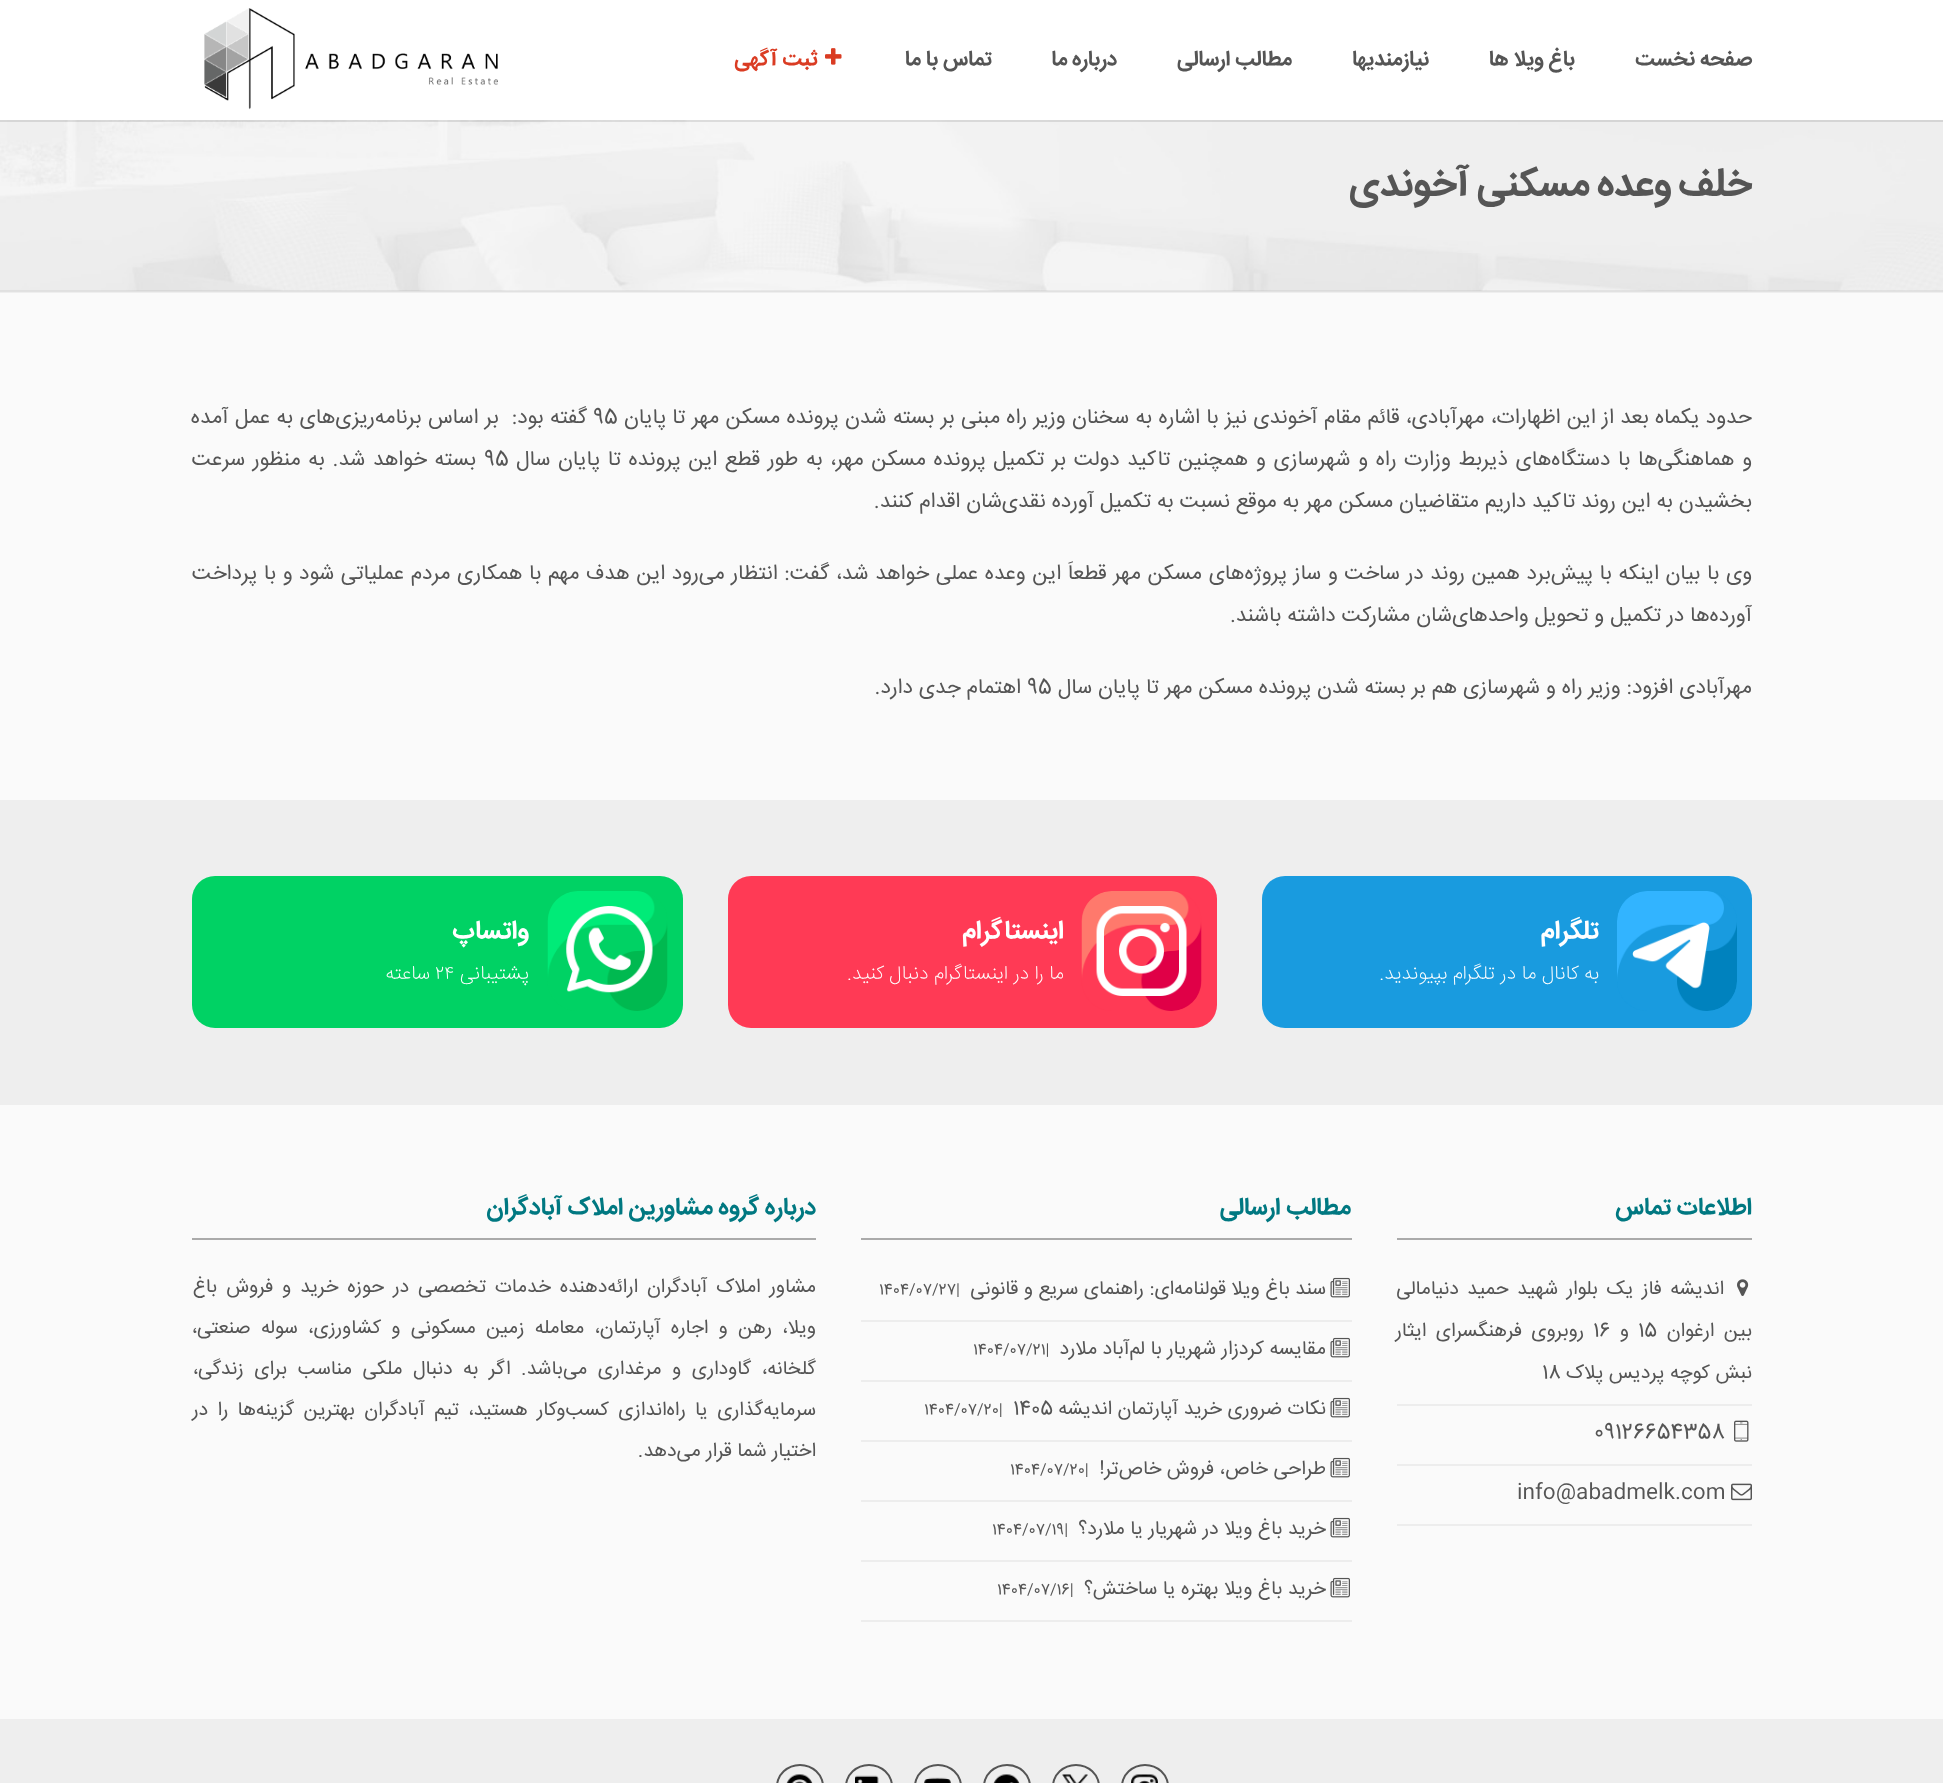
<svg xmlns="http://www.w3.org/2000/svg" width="1943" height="1783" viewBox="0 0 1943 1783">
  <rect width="100%" height="100%" fill="rgb(250,250,250)"/>
  <image x="0" y="90" width="1943" height="201" href="pic3.png"/>
  <rect x="0" y="0" width="1943" height="120" fill="rgba(255,255,255,0.98)"/>
  <g font-family="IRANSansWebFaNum" font-size="21" font-weight="bold" direction="rtl" fill="rgb(85,85,85)">
    <text x="1752" y="65">صفحه نخست</text>
    <text x="1575" y="65">باغ ویلا ها</text>
    <text x="1429" y="65">نیازمندیها</text>
    <text x="1292" y="65">مطالب ارسالی</text>
    <text x="1117" y="65">درباره ما</text>
    <text x="992" y="65">تماس با ما</text>
  </g>
  <image x="825" y="48" width="17" height="17" href="pic1.png"/>
  <text x="818" y="65" font-family="IRANSansWebFaNum" font-size="21" font-weight="bold" direction="rtl" fill="rgb(218,60,35)">ثبت آگهی</text>
  <image x="204" y="8" width="294" height="102" href="pic2.png"/>
  <rect x="0" y="120" width="1943" height="2" fill="rgba(0,0,0,0.1)"/>
  <text x="1752" y="195" word-spacing="-1.5" font-family="IRANSansWebFaNum" font-size="39" font-weight="bold" direction="rtl" fill="rgb(85,85,85)">خلف وعده مسکنی آخوندی</text>
  <rect x="0" y="291" width="1943" height="2" fill="rgb(238,238,238)"/>
  <rect x="0" y="290" width="1943" height="2" fill="rgba(0,0,0,0.05)"/>
  <rect x="0" y="800" width="1943" height="305" fill="rgb(238,238,238)"/>
  <text x="1752" y="423" word-spacing="0.4" font-family="IRANSansWebFaNum" font-size="21" direction="rtl" fill="rgb(85,85,85)">حدود یکماه بعد از این اظهارات، مهرآبادی، قائم مقام آخوندی نیز با اشاره به سخنان وزیر راه مبنی بر بسته شدن پرونده مسکن مهر تا پایان</text>
  <text x="593" y="423" font-family="IRANSansWebFaNum" font-size="21" fill="rgb(85,85,85)">95</text>
  <g font-family="IRANSansWebFaNum" font-size="21" direction="rtl" fill="rgb(85,85,85)">
    <text x="587" y="423" word-spacing="0.5" xml:space="preserve">گفته بود:  بر اساس برنامه‌ریزی‌های به عمل آمده</text>
    <text x="1752" y="465" word-spacing="1.75">و هماهنگی‌ها با دستگاه‌های ذیربط وزارت راه و شهرسازی و همچنین تاکید دولت بر تکمیل پرونده مسکن مهر، به طور قطع این پرونده تا پایان سال</text>
  </g>
  <text x="484" y="465" font-family="IRANSansWebFaNum" font-size="21" fill="rgb(85,85,85)">95</text>
  <g font-family="IRANSansWebFaNum" font-size="21" direction="rtl" fill="rgb(85,85,85)">
    <text x="476" y="465" word-spacing="1.75">بسته خواهد شد. به منظور سرعت</text>
    <text x="1752" y="507">بخشیدن به این روند تاکید داریم متقاضیان مسکن مهر به موقع نسبت به تکمیل آورده نقدی‌شان اقدام کنند.</text>
    <text x="1752" y="579" word-spacing="0.7">وی با بیان اینکه با پیش‌برد همین روند در ساخت و ساز پروژه‌های مسکن مهر قطعاَ این وعده عملی خواهد شد، گفت: انتظار می‌رود این هدف مهم با همکاری مردم عملیاتی شود و با پرداخت</text>
    <text x="1752" y="621">آورده‌ها در تکمیل و تحویل واحدهای‌شان مشارکت داشته باشند.</text>
    <text x="1752" y="693">مهرآبادی افزود: وزیر راه و شهرسازی هم بر بسته شدن پرونده مسکن مهر تا پایان سال</text>
  </g>
  <text x="1027" y="693" font-family="IRANSansWebFaNum" font-size="21" fill="rgb(85,85,85)">95</text>
  <text x="1021" y="693" font-family="IRANSansWebFaNum" font-size="21" direction="rtl" fill="rgb(85,85,85)">اهتمام جدی دارد.</text>
  <rect x="1262" y="876" width="490" height="152" rx="23" fill="rgb(25,155,223)"/>
  <image x="1617" y="891" width="120" height="120" href="pic4.png"/>
  <text x="1599" y="938" font-family="IRANSansWebFaNum" font-size="25.5" font-weight="bold" direction="rtl" fill="rgb(255,255,255)">تلگرام</text>
  <text x="1599" y="979" font-family="IRANSansWebFaNum" font-size="19.5" font-weight="200" direction="rtl" fill="rgb(255,255,255)">به کانال ما در تلگرام بپیوندید.</text>
  <rect x="728" y="876" width="489" height="152" rx="23" fill="rgb(255,58,85)"/>
  <image x="1081" y="891" width="121" height="120" href="pic5.png"/>
  <text x="1064" y="938" font-family="IRANSansWebFaNum" font-size="25.5" font-weight="bold" direction="rtl" fill="rgb(255,255,255)">اینستاگرام</text>
  <text x="1064" y="979" font-family="IRANSansWebFaNum" font-size="19.5" font-weight="200" direction="rtl" fill="rgb(255,255,255)">ما را در اینستاگرام دنبال کنید.</text>
  <rect x="192" y="876" width="491" height="152" rx="23" fill="rgb(0,210,100)"/>
  <image x="547" y="891" width="121" height="120" href="pic6.png"/>
  <text x="529" y="938" font-family="IRANSansWebFaNum" font-size="25.5" font-weight="bold" direction="rtl" fill="rgb(255,255,255)">واتساپ</text>
  <text x="529" y="979" font-family="IRANSansWebFaNum" font-size="19.5" font-weight="200" direction="rtl" fill="rgb(255,255,255)">پشتیبانی</text>
  <text x="435" y="979" font-family="IRANSansWebFaNum" font-size="19.5" font-weight="200" fill="rgb(255,255,255)">٢۴</text>
  <text x="430" y="979" font-family="IRANSansWebFaNum" font-size="19.5" font-weight="200" direction="rtl" fill="rgb(255,255,255)">ساعته</text>
  <rect x="1397" y="1238" width="355" height="2" fill="rgb(170,170,170)"/>
  <text x="1752" y="1214" font-family="IRANSansWebFaNum" font-size="24" font-weight="bold" direction="rtl" fill="rgb(0,120,129)">اطلاعات تماس</text>
  <rect x="1397" y="1404" width="355" height="2" fill="rgb(237,237,237)"/>
  <image x="1737" y="1279" width="12" height="17" href="pic7.png"/>
  <g font-family="IRANSansWebFaNum" font-size="19.5" direction="rtl" fill="rgb(85,85,85)">
    <text x="1724" y="1294" word-spacing="3">اندیشه فاز یک بلوار شهید حمید دنیامالی</text>
    <text x="1752" y="1336" word-spacing="3.9">بین ارغوان</text>
  </g>
  <text x="1638" y="1336" font-family="IRANSansWebFaNum" font-size="19.5" fill="rgb(85,85,85)">15</text>
  <text x="1629" y="1336" font-family="IRANSansWebFaNum" font-size="19.5" direction="rtl" fill="rgb(85,85,85)">و</text>
  <text x="1593" y="1336" font-family="IRANSansWebFaNum" font-size="19.5" fill="rgb(85,85,85)">16</text>
  <g font-family="IRANSansWebFaNum" font-size="19.5" direction="rtl" fill="rgb(85,85,85)">
    <text x="1584" y="1336" word-spacing="3.9">روبروی فرهنگسرای ایثار</text>
    <text x="1752" y="1378">نبش کوچه پردیس پلاک</text>
  </g>
  <text x="1542" y="1378" font-family="IRANSansWebFaNum" font-size="19.5" fill="rgb(85,85,85)">18</text>
  <rect x="1397" y="1464" width="355" height="2" fill="rgb(237,237,237)"/>
  <image x="1734" y="1420" width="15" height="22" href="pic8.png"/>
  <text x="1594" y="1438" font-family="IRANSansWebFaNum" font-size="21" fill="rgb(85,85,85)">09126654358</text>
  <rect x="1397" y="1524" width="355" height="2" fill="rgb(237,237,237)"/>
  <image x="1731" y="1483" width="21" height="18" href="pic9.png"/>
  <text x="1517" y="1498" font-family="IRANSansWebFaNum" font-size="21" fill="rgb(85,85,85)">info@abadmelk.com</text>
  <rect x="861" y="1238" width="491" height="2" fill="rgb(170,170,170)"/>
  <text x="1351" y="1214" font-family="IRANSansWebFaNum" font-size="24" font-weight="bold" direction="rtl" fill="rgb(0,120,129)">مطالب ارسالی</text>
  <rect x="861" y="1320" width="491" height="2" fill="rgb(237,237,237)"/>
  <image x="1330" y="1277" width="20" height="21" href="pic10.png"/>
  <text x="1326" y="1294" font-family="IRANSansWebFaNum" font-size="19.5" direction="rtl" fill="rgb(85,85,85)">سند باغ ویلا قولنامه‌ای: راهنمای سریع و قانونی</text>
  <text x="879" y="1294" font-family="IRANSansWebFaNum" font-size="15" fill="rgb(85,85,85)">1404/07/27|</text>
  <rect x="861" y="1380" width="491" height="2" fill="rgb(237,237,237)"/>
  <image x="1330" y="1337" width="20" height="21" href="pic10.png"/>
  <text x="1326" y="1354" font-family="IRANSansWebFaNum" font-size="19.5" direction="rtl" fill="rgb(85,85,85)">مقایسه کردزار شهریار با لم‌آباد ملارد</text>
  <text x="973" y="1354" font-family="IRANSansWebFaNum" font-size="15" fill="rgb(85,85,85)">1404/07/21|</text>
  <rect x="861" y="1440" width="491" height="2" fill="rgb(237,237,237)"/>
  <image x="1330" y="1397" width="20" height="21" href="pic10.png"/>
  <text x="1326" y="1414" font-family="IRANSansWebFaNum" font-size="19.5" direction="rtl" fill="rgb(85,85,85)">نکات ضروری خرید آپارتمان اندیشه</text>
  <text x="1013" y="1414" font-family="IRANSansWebFaNum" font-size="19.5" fill="rgb(85,85,85)">1405</text>
  <text x="924" y="1414" font-family="IRANSansWebFaNum" font-size="15" fill="rgb(85,85,85)">1404/07/20|</text>
  <rect x="861" y="1500" width="491" height="2" fill="rgb(237,237,237)"/>
  <image x="1330" y="1457" width="20" height="21" href="pic10.png"/>
  <text x="1326" y="1474" font-family="IRANSansWebFaNum" font-size="19.5" direction="rtl" fill="rgb(85,85,85)">طراحی خاص، فروش خاص‌تر!</text>
  <text x="1010" y="1474" font-family="IRANSansWebFaNum" font-size="15" fill="rgb(85,85,85)">1404/07/20|</text>
  <rect x="861" y="1560" width="491" height="2" fill="rgb(237,237,237)"/>
  <image x="1330" y="1517" width="20" height="21" href="pic10.png"/>
  <text x="1326" y="1534" font-family="IRANSansWebFaNum" font-size="19.5" direction="rtl" fill="rgb(85,85,85)">خرید باغ ویلا در شهریار یا ملارد؟</text>
  <text x="992" y="1534" font-family="IRANSansWebFaNum" font-size="15" fill="rgb(85,85,85)">1404/07/19|</text>
  <rect x="861" y="1620" width="491" height="2" fill="rgb(237,237,237)"/>
  <image x="1330" y="1577" width="20" height="21" href="pic10.png"/>
  <text x="1326" y="1594" font-family="IRANSansWebFaNum" font-size="19.5" direction="rtl" fill="rgb(85,85,85)">خرید باغ ویلا بهتره یا ساختش؟</text>
  <text x="997" y="1594" font-family="IRANSansWebFaNum" font-size="15" fill="rgb(85,85,85)">1404/07/16|</text>
  <rect x="192" y="1238" width="624" height="2" fill="rgb(170,170,170)"/>
  <text x="816" y="1214" font-family="IRANSansWebFaNum" font-size="24" font-weight="bold" direction="rtl" fill="rgb(0,120,129)">درباره گروه مشاورین املاک آبادگران</text>
  <g font-family="IRANSansWebFaNum" font-size="19.5" direction="rtl" fill="rgb(85,85,85)">
    <text x="816" y="1292" word-spacing="3.4">مشاور املاک آبادگران ارائه‌دهنده خدمات تخصصی در حوزه خرید و فروش باغ</text>
    <text x="816" y="1333" word-spacing="4.75">ویلا، رهن و اجاره آپارتمان، معامله زمین مسکونی و کشاورزی، سوله صنعتی،</text>
    <text x="816" y="1374" word-spacing="5.1">گلخانه، گاوداری و مرغداری می‌باشد. اگر به دنبال ملکی مناسب برای زندگی،</text>
    <text x="816" y="1415" word-spacing="3.9">سرمایه‌گذاری یا راه‌اندازی کسب‌وکار هستید، تیم آبادگران بهترین گزینه‌ها را در</text>
    <text x="816" y="1456">اختیار شما قرار می‌دهد.</text>
  </g>
  <rect x="0" y="1719" width="1943" height="64" fill="rgb(238,238,238)"/>
  <rect x="1122" y="1765" width="46" height="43" rx="23" fill="none" stroke="rgb(85,85,85)" stroke-width="2"/>
  <image x="1131" y="1774" width="27" height="9" href="pic11.png"/>
  <rect x="1053" y="1765" width="46" height="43" rx="23" fill="none" stroke="rgb(85,85,85)" stroke-width="2"/>
  <image x="1062" y="1774" width="26" height="9" href="pic12.png"/>
  <rect x="984" y="1765" width="46" height="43" rx="23" fill="none" stroke="rgb(85,85,85)" stroke-width="2"/>
  <image x="993" y="1774" width="27" height="9" href="pic13.png"/>
  <rect x="915" y="1765" width="46" height="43" rx="23" fill="none" stroke="rgb(85,85,85)" stroke-width="2"/>
  <image x="924" y="1777" width="27" height="6" href="pic14.png"/>
  <rect x="846" y="1765" width="46" height="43" rx="23" fill="none" stroke="rgb(85,85,85)" stroke-width="2"/>
  <image x="855" y="1775" width="24" height="8" href="pic15.png"/>
  <rect x="777" y="1765" width="46" height="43" rx="23" fill="none" stroke="rgb(85,85,85)" stroke-width="2"/>
  <image x="786" y="1774" width="27" height="9" href="pic16.png"/>
</svg>
